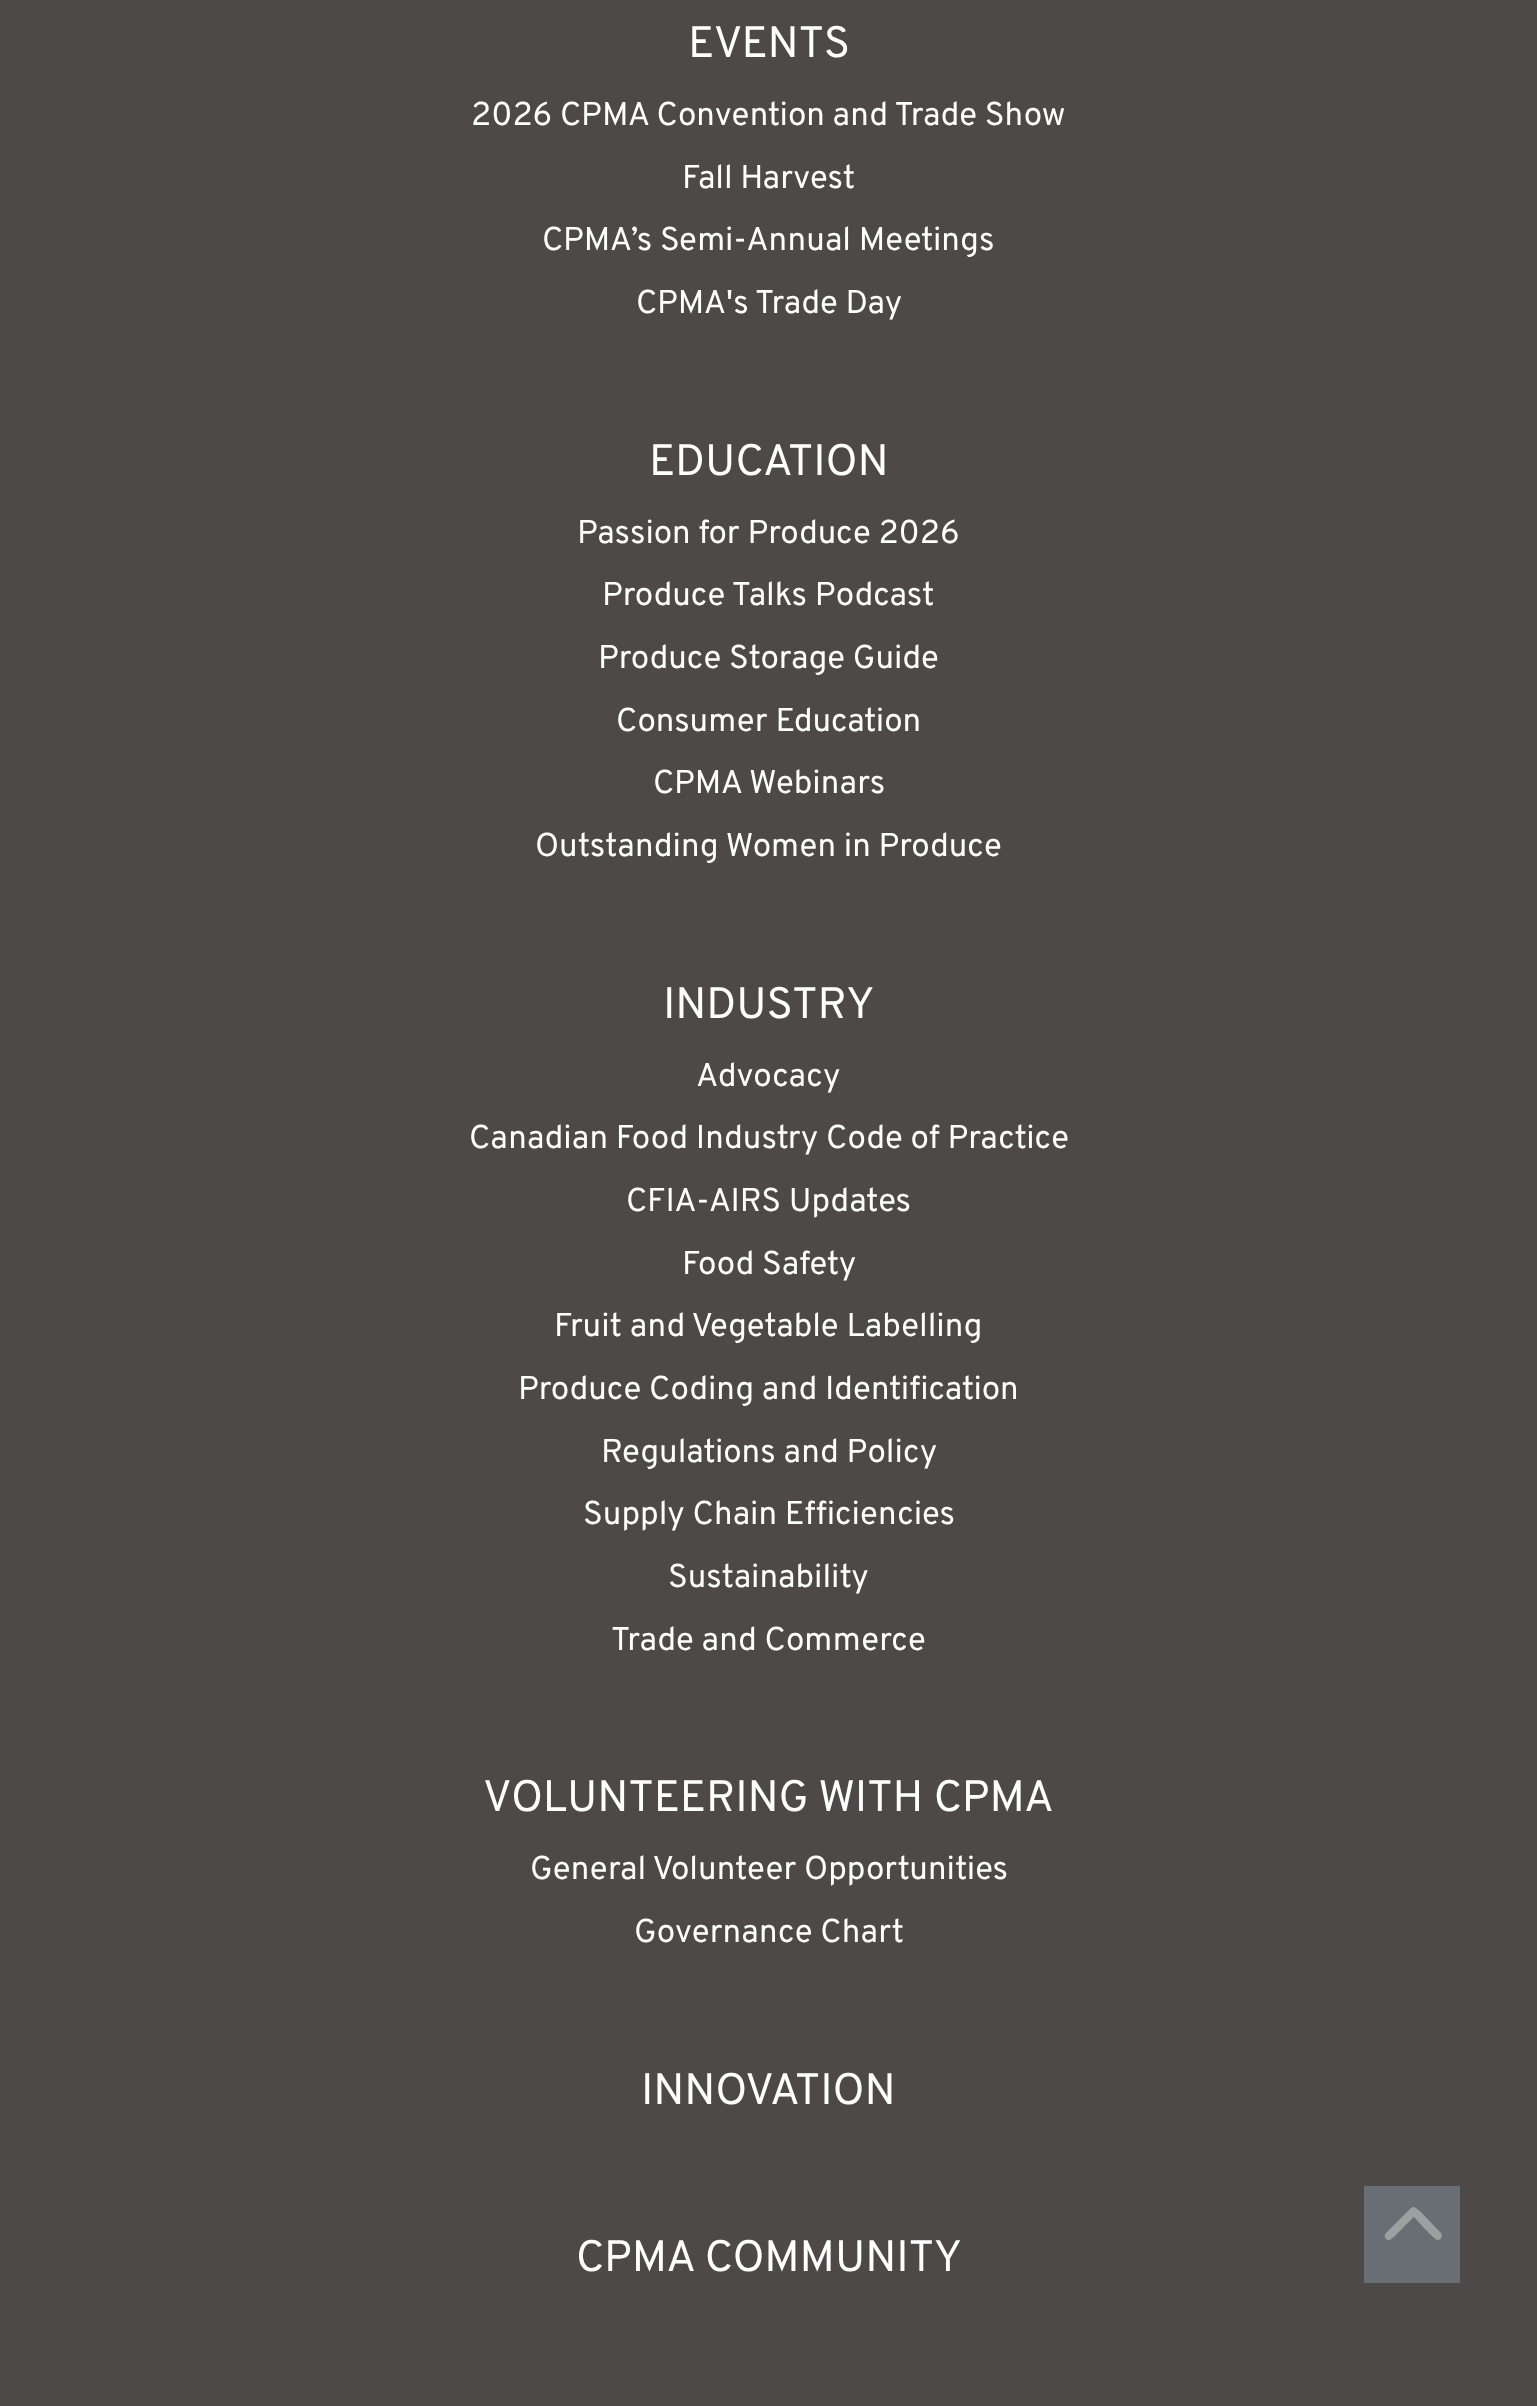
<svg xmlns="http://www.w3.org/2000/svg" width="1537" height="2406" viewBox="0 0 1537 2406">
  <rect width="100%" height="100%" fill="rgb(77,73,72)"/>
  <text x="688" y="57" font-family="Overpass" font-size="44" fill="rgb(255,255,255)">EVENTS</text>
  <g font-family="Overpass" font-size="33" fill="rgb(255,255,255)">
    <text x="471" y="125">2026 CPMA Convention and Trade Show</text>
    <text x="682" y="188">Fall Harvest</text>
    <text x="542" y="250">CPMA’s Semi-Annual Meetings</text>
    <text x="636" y="313">CPMA's Trade Day</text>
  </g>
  <text x="649" y="475" font-family="Overpass" font-size="44" fill="rgb(255,255,255)">EDUCATION</text>
  <g font-family="Overpass" font-size="33" fill="rgb(255,255,255)">
    <text x="577" y="543">Passion for Produce 2026</text>
    <text x="602" y="605">Produce Talks Podcast</text>
    <text x="598" y="668">Produce Storage Guide</text>
    <text x="616" y="731">Consumer Education</text>
    <text x="653" y="793">CPMA Webinars</text>
    <text x="535" y="856">Outstanding Women in Produce</text>
  </g>
  <text x="663" y="1018" font-family="Overpass" font-size="44" fill="rgb(255,255,255)">INDUSTRY</text>
  <g font-family="Overpass" font-size="33" fill="rgb(255,255,255)">
    <text x="696" y="1086">Advocacy</text>
    <text x="469" y="1148">Canadian Food Industry Code of Practice</text>
    <text x="626" y="1211">CFIA-AIRS Updates</text>
    <text x="682" y="1274">Food Safety</text>
    <text x="554" y="1336">Fruit and Vegetable Labelling</text>
    <text x="518" y="1399">Produce Coding and Identification</text>
    <text x="601" y="1462">Regulations and Policy</text>
    <text x="583" y="1524">Supply Chain Efficiencies</text>
    <text x="668" y="1587">Sustainability</text>
    <text x="611" y="1650">Trade and Commerce</text>
  </g>
  <text x="483" y="1811" font-family="Overpass" font-size="44" fill="rgb(255,255,255)">VOLUNTEERING WITH CPMA</text>
  <g font-family="Overpass" font-size="33" fill="rgb(255,255,255)">
    <text x="530" y="1879">General Volunteer Opportunities</text>
    <text x="634" y="1942">Governance Chart</text>
  </g>
  <g font-family="Overpass" font-size="44" fill="rgb(255,255,255)">
    <text x="641" y="2104">INNOVATION</text>
    <text x="576" y="2271">CPMA COMMUNITY</text>
  </g>
  <rect x="1364" y="2186" width="96" height="97" fill="rgb(103,111,117)"/>
  <path d="M1411 2208C1414 2205 1418 2210 1421 2212L1437 2229C1439 2231 1444 2234 1441 2238C1441 2239 1439 2240 1438 2240C1434 2240 1417 2220 1414 2217C1410 2220 1393 2239 1390 2240C1386 2241 1383 2236 1386 2233Z" fill="rgb(153,161,161)"/>
</svg>
